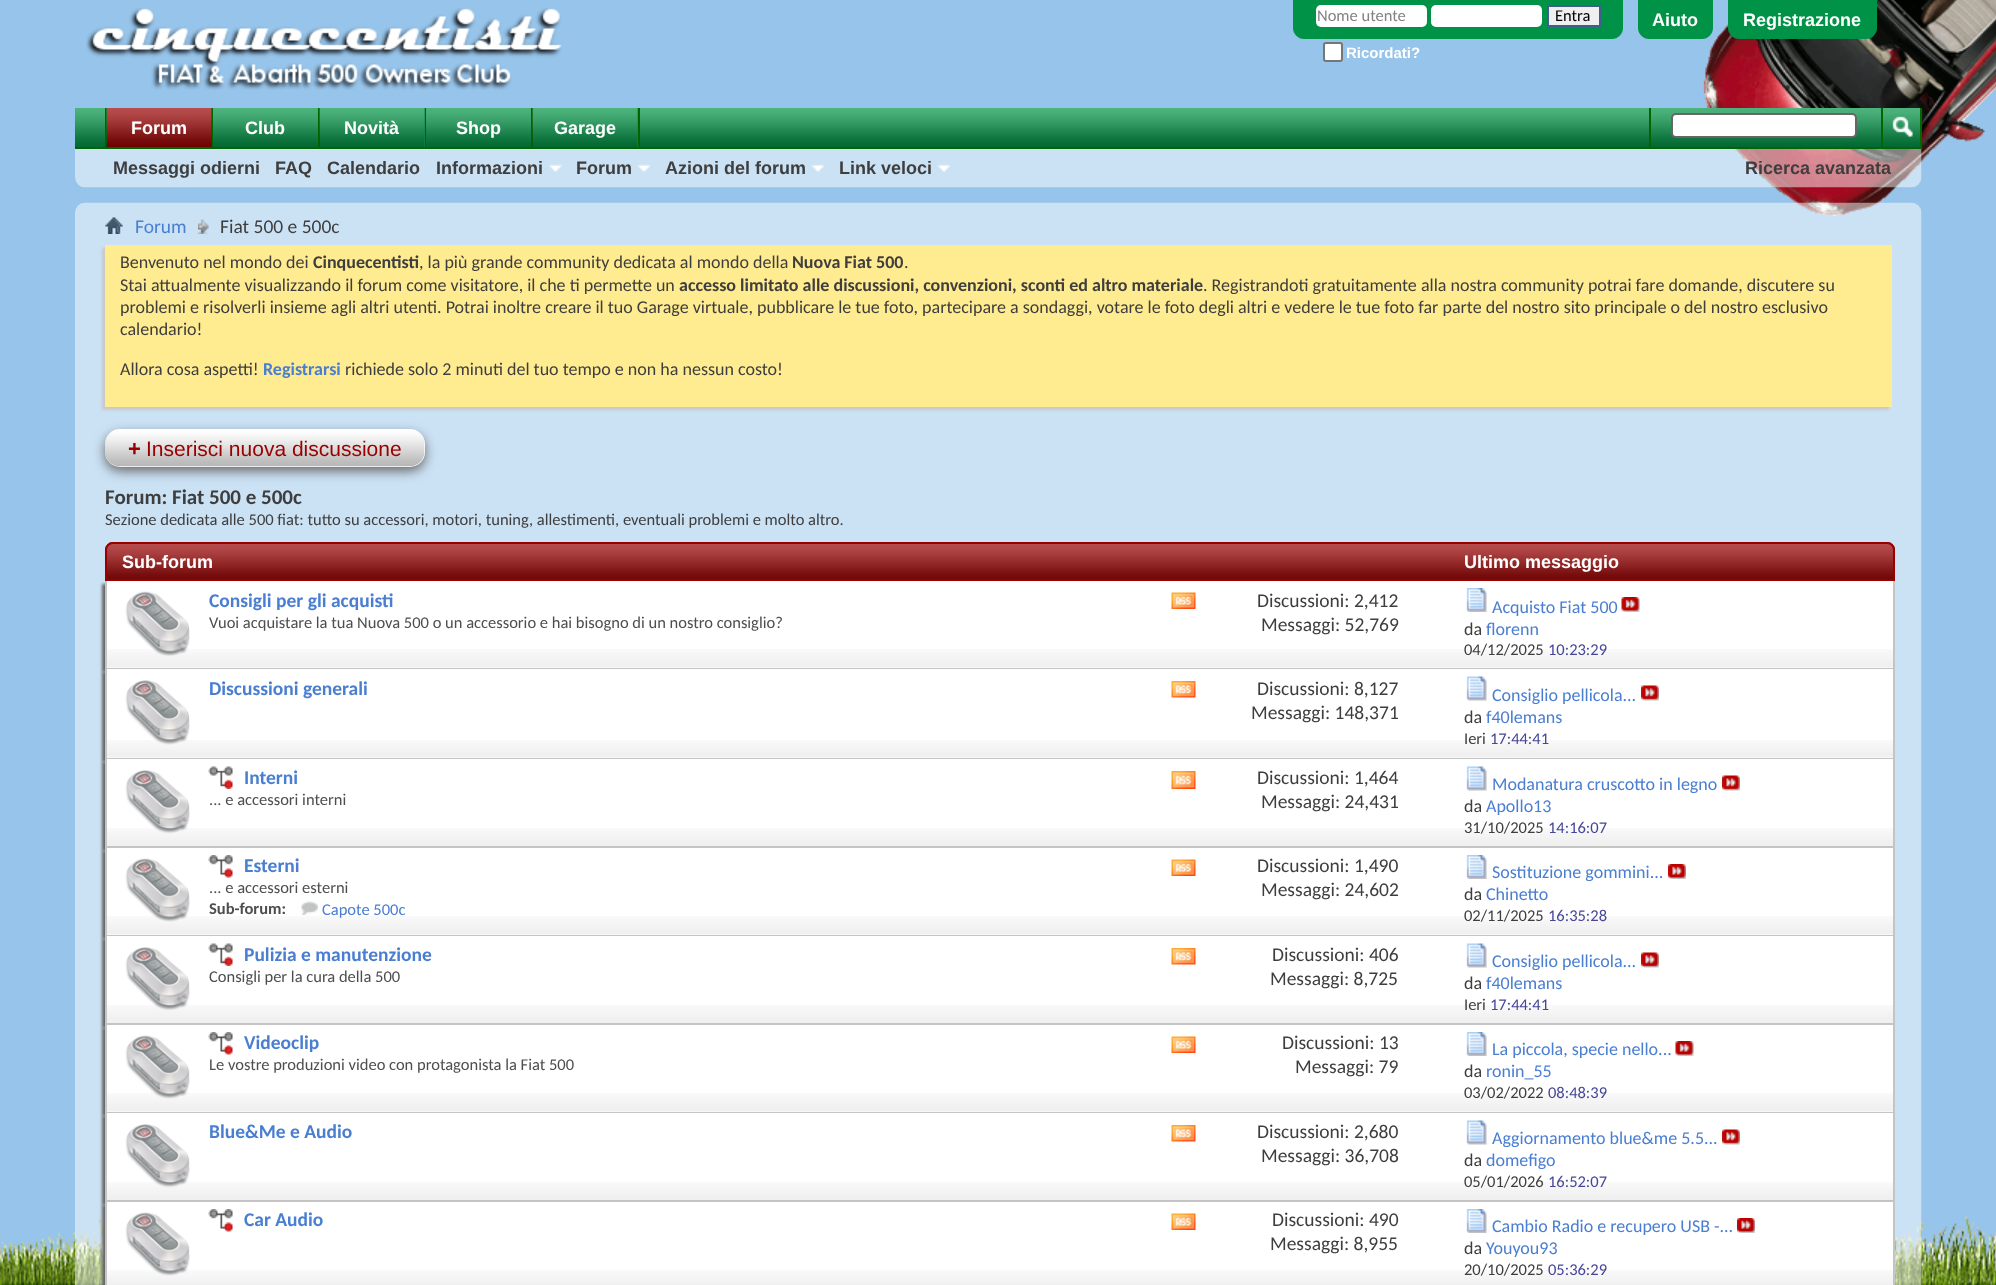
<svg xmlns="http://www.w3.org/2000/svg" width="1996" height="1285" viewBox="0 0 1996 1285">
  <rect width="100%" height="100%" fill="rgb(151,196,234)"/>
  <image x="1703" y="0" width="293" height="217" href="pic1.png"/>
  <image x="86" y="8" width="476" height="82" href="pic2.png"/>
  <path d="M1293 0H1623V28C1623 34 1618 39 1612 39H1304C1298 39 1293 34 1293 28Z" fill="rgb(0,146,70)"/>
  <rect x="1316" y="5" width="111" height="22" rx="5" fill="rgb(255,255,255)"/>
  <text x="1317" y="21" font-family="Carlito" font-size="16.5" fill="rgb(130,130,130)">Nome utente</text>
  <rect x="1431" y="5" width="111" height="22" rx="5" fill="rgb(255,255,255)"/>
  <rect x="1548" y="6" width="52" height="20" fill="rgb(239,239,239)" stroke="rgb(65,93,141)" stroke-width="2"/>
  <text x="1555" y="21" font-family="Carlito" font-size="16.5" fill="rgb(0,0,0)">Entra</text>
  <rect x="1324" y="43" width="18" height="18" rx="2" fill="rgb(255,255,255)" stroke="rgb(118,118,118)" stroke-width="2"/>
  <text x="1346" y="58" font-family="Liberation Sans" font-size="15" font-weight="bold" fill="rgb(255,255,255)">Ricordati?</text>
  <path d="M1638 0H1713V28C1713 34 1708 39 1702 39H1649C1643 39 1638 34 1638 28Z" fill="rgb(0,146,70)"/>
  <text x="1652" y="26" font-family="Liberation Sans" font-size="18" font-weight="bold" fill="rgb(255,255,255)">Aiuto</text>
  <path d="M1728 0H1877V28C1877 34 1872 39 1866 39H1739C1733 39 1728 34 1728 28Z" fill="rgb(0,146,70)"/>
  <text x="1743" y="26" font-family="Liberation Sans" font-size="18" font-weight="bold" fill="rgb(255,255,255)">Registrazione</text>
  <image x="75" y="149" width="1847" height="39" href="pic3.png"/>
  <rect x="75" y="108" width="1845" height="39" fill="rgb(0,146,70)"/>
  <image x="75" y="108" width="1845" height="39" href="pic4.png"/>
  <rect x="318" y="108" width="2" height="39" fill="rgb(0,102,0)"/>
  <rect x="213" y="108" width="105" height="39" fill="rgb(0,146,70)"/>
  <image x="213" y="108" width="105" height="39" href="pic5.png"/>
  <text x="245" y="134" font-family="Liberation Sans" font-size="18" font-weight="bold" fill="rgb(255,255,255)">Club</text>
  <rect x="425" y="108" width="1" height="39" fill="rgb(0,102,0)"/>
  <rect x="320" y="108" width="105" height="39" fill="rgb(0,146,70)"/>
  <image x="319" y="108" width="106" height="39" href="pic6.png"/>
  <text x="344" y="134" font-family="Liberation Sans" font-size="18" font-weight="bold" fill="rgb(255,255,255)">Novità</text>
  <rect x="531" y="108" width="2" height="39" fill="rgb(0,102,0)"/>
  <rect x="426" y="108" width="105" height="39" fill="rgb(0,146,70)"/>
  <image x="426" y="108" width="105" height="39" href="pic5.png"/>
  <text x="456" y="134" font-family="Liberation Sans" font-size="18" font-weight="bold" fill="rgb(255,255,255)">Shop</text>
  <rect x="212" y="108" width="1" height="39" fill="rgb(0,102,0)"/>
  <rect x="105" y="108" width="2" height="39" fill="rgb(0,102,0)"/>
  <rect x="107" y="108" width="105" height="39" fill="rgb(153,0,0)"/>
  <image x="106" y="108" width="106" height="39" href="pic7.png"/>
  <text x="131" y="134" font-family="Liberation Sans" font-size="18" font-weight="bold" fill="rgb(255,255,255)">Forum</text>
  <rect x="75" y="147" width="1847" height="2" fill="rgb(0,102,0)"/>
  <g font-family="Liberation Sans" font-size="18" font-weight="bold" fill="rgb(62,62,62)">
    <text x="113" y="174">Messaggi odierni</text>
    <text x="275" y="174">FAQ</text>
    <text x="327" y="174">Calendario</text>
    <text x="436" y="174">Informazioni</text>
  </g>
  <image x="549" y="164" width="13" height="8" href="pic8.png"/>
  <text x="576" y="174" font-family="Liberation Sans" font-size="18" font-weight="bold" fill="rgb(62,62,62)">Forum</text>
  <image x="637" y="164" width="13" height="8" href="pic9.png"/>
  <text x="665" y="174" font-family="Liberation Sans" font-size="18" font-weight="bold" fill="rgb(62,62,62)">Azioni del forum</text>
  <image x="811" y="164" width="13" height="8" href="pic10.png"/>
  <text x="839" y="174" font-family="Liberation Sans" font-size="18" font-weight="bold" fill="rgb(62,62,62)">Link veloci</text>
  <image x="937" y="164" width="13" height="8" href="pic10.png"/>
  <rect x="638" y="108" width="2" height="39" fill="rgb(0,102,0)"/>
  <rect x="533" y="108" width="105" height="39" fill="rgb(0,146,70)"/>
  <image x="532" y="108" width="106" height="39" href="pic6.png"/>
  <text x="554" y="134" font-family="Liberation Sans" font-size="18" font-weight="bold" fill="rgb(255,255,255)">Garage</text>
  <rect x="1649" y="108" width="2" height="39" fill="rgb(0,102,0)"/>
  <rect x="1672" y="114" width="184" height="23" rx="4" fill="rgb(255,255,255)" stroke="rgb(102,102,102)" stroke-width="2"/>
  <rect x="1920" y="108" width="2" height="39" fill="rgb(0,102,0)"/>
  <rect x="1881" y="108" width="2" height="39" fill="rgb(0,102,0)"/>
  <image x="1892" y="116" width="21" height="22" href="pic11.png"/>
  <text x="1745" y="174" font-family="Liberation Sans" font-size="18" font-weight="bold" fill="rgb(62,62,62)">Ricerca avanzata</text>
  <image x="0" y="1214" width="1996" height="71" href="pic38.png"/>
  <image x="75" y="202" width="1847" height="1083" href="pic12.png"/>
  <image x="105" y="217" width="18" height="17" href="pic13.png"/>
  <image x="198" y="219" width="11" height="15" href="pic14.png"/>
  <text x="135" y="233" font-family="Carlito" font-size="19.5" fill="rgb(73,126,209)">Forum</text>
  <text x="220" y="233" font-family="Carlito" font-size="19.5" fill="rgb(62,62,62)">Fiat 500 e 500c</text>
  <rect x="102" y="248" width="1787" height="162" fill="rgb(200,200,200)" filter="blur(1.5px)"/>
  <rect x="105" y="245" width="1787" height="162" fill="rgb(255,235,144)"/>
  <text x="120" y="268" font-family="Carlito" font-size="18" fill="rgb(62,62,62)">Benvenuto nel mondo dei</text>
  <text x="313" y="268" font-family="Carlito" font-size="18" font-weight="bold" fill="rgb(62,62,62)">Cinquecentisti</text>
  <text x="419" y="268" font-family="Carlito" font-size="18" fill="rgb(62,62,62)">, la più grande community dedicata al mondo della</text>
  <text x="792" y="268" font-family="Carlito" font-size="18" font-weight="bold" fill="rgb(62,62,62)">Nuova Fiat 500</text>
  <g font-family="Carlito" font-size="18" fill="rgb(62,62,62)">
    <text x="904" y="268">.</text>
    <text x="120" y="291">Stai attualmente visualizzando il forum come visitatore, il che ti permette un</text>
  </g>
  <text x="679" y="291" font-family="Carlito" font-size="18" font-weight="bold" fill="rgb(62,62,62)">accesso limitato alle discussioni, convenzioni, sconti ed altro materiale</text>
  <g font-family="Carlito" font-size="18" fill="rgb(62,62,62)">
    <text x="1203" y="291">. Registrandoti gratuitamente alla nostra community potrai fare domande, discutere su</text>
    <text>
      <tspan x="120" y="313">problemi e risolverli insieme agli altri utenti. Potrai inoltre creare il tuo Garage virtuale, pubblicare le tue foto, partecipare a sondaggi, votare le foto degli altri e vedere le tue foto far parte del nostro sito principale o del nostro esclusivo</tspan>
      <tspan x="120" y="335">calendario!</tspan>
    </text>
    <text x="120" y="375">Allora cosa aspetti!</text>
  </g>
  <text x="263" y="375" font-family="Carlito" font-size="18" font-weight="bold" fill="rgb(73,126,209)">Registrarsi</text>
  <text x="345" y="375" font-family="Carlito" font-size="18" fill="rgb(62,62,62)">richiede solo 2 minuti del tuo tempo e non ha nessun costo!</text>
  <rect x="105" y="434" width="320" height="37" rx="15" fill="rgb(102,102,102)" filter="blur(6px)"/>
  <rect x="105" y="429" width="320" height="38" rx="15" fill="rgb(255,255,255)"/>
  <image x="105" y="429" width="320" height="38" href="pic15.png"/>
  <text x="128" y="456" font-family="Liberation Sans" font-size="22" font-weight="bold" fill="rgb(153,0,0)">+</text>
  <text x="146" y="456" font-family="Liberation Sans" font-size="21" fill="rgb(153,0,0)">Inserisci nuova discussione</text>
  <text x="105" y="504" font-family="Carlito" font-size="21" font-weight="bold" fill="rgb(62,62,62)">Forum: Fiat 500 e 500c</text>
  <text x="105" y="525" font-family="Carlito" font-size="16.5" fill="rgb(62,62,62)">Sezione dedicata alle 500 fiat: tutto su accessori, motori, tuning, allestimenti, eventuali problemi e molto altro.</text>
  <path d="M113 542H1887C1891.5 542 1895 545.5 1895 550V581H105V550C105 545.5 108.5 542 113 542Z" fill="rgb(153,0,0)"/>
  <image x="105" y="543" width="1790" height="36" href="pic16.png"/>
  <path d="M113 543H1887C1891 543 1894 546 1894 550V580H106V550C106 546 109 543 113 543Z" fill="none" stroke="rgb(153,0,0)" stroke-width="2"/>
  <g font-family="Liberation Sans" font-size="18" font-weight="bold" fill="rgb(255,255,255)">
    <text x="122" y="568">Sub-forum</text>
    <text x="1464" y="568">Ultimo messaggio</text>
  </g>
  <rect x="102" y="584" width="1790" height="88" fill="rgb(102,102,102)" filter="blur(1.5px)"/>
  <rect x="107" y="581" width="1786" height="87" fill="rgb(255,255,255)"/>
  <image x="107" y="649" width="1786" height="19" href="pic17.png"/>
  <rect x="1893" y="581" width="2" height="88" fill="rgb(196,196,196)"/>
  <rect x="105" y="668" width="1790" height="1" fill="rgb(196,196,196)"/>
  <rect x="105" y="581" width="2" height="88" fill="rgb(196,196,196)"/>
  <image x="125" y="591" width="65" height="65" href="pic18.png"/>
  <text x="209" y="607" font-family="Carlito" font-size="19.5" font-weight="bold" fill="rgb(73,126,209)">Consigli per gli acquisti</text>
  <text x="209" y="628" font-family="Carlito" font-size="16.5" fill="rgb(78,78,78)">Vuoi acquistare la tua Nuova 500 o un accessorio e hai bisogno di un nostro consiglio?</text>
  <image x="1171" y="592" width="25" height="17" href="pic19.png"/>
  <g font-family="Carlito" font-size="19.5" fill="rgb(62,62,62)">
    <text x="1257" y="607">Discussioni: 2,412</text>
    <text x="1261" y="631">Messaggi: 52,769</text>
  </g>
  <image x="1466" y="588" width="21" height="24" href="pic20.png"/>
  <text x="1492" y="613" font-family="Carlito" font-size="18" fill="rgb(73,126,209)">Acquisto Fiat 500</text>
  <image x="1621" y="597" width="19" height="15" href="pic21.png"/>
  <text x="1464" y="635" font-family="Carlito" font-size="18" fill="rgb(62,62,62)">da</text>
  <text x="1486" y="635" font-family="Carlito" font-size="18" fill="rgb(73,126,209)">florenn</text>
  <text x="1464" y="655" font-family="Carlito" font-size="16.5" fill="rgb(62,62,62)">04/12/2025</text>
  <text x="1548" y="655" font-family="Carlito" font-size="16.5" fill="rgb(70,70,153)">10:23:29</text>
  <rect x="102" y="672" width="1790" height="90" fill="rgb(102,102,102)" filter="blur(1.5px)"/>
  <rect x="107" y="669" width="1786" height="89" fill="rgb(255,255,255)"/>
  <image x="107" y="740" width="1786" height="18" href="pic22.png"/>
  <rect x="1893" y="669" width="2" height="90" fill="rgb(196,196,196)"/>
  <rect x="105" y="758" width="1790" height="1" fill="rgb(196,196,196)"/>
  <rect x="105" y="669" width="2" height="90" fill="rgb(196,196,196)"/>
  <image x="125" y="680" width="65" height="65" href="pic23.png"/>
  <text x="209" y="695" font-family="Carlito" font-size="19.5" font-weight="bold" fill="rgb(73,126,209)">Discussioni generali</text>
  <image x="1171" y="681" width="25" height="17" href="pic24.png"/>
  <g font-family="Carlito" font-size="19.5" fill="rgb(62,62,62)">
    <text x="1257" y="695">Discussioni: 8,127</text>
    <text x="1251" y="719">Messaggi: 148,371</text>
  </g>
  <image x="1466" y="676" width="21" height="25" href="pic25.png"/>
  <text x="1492" y="701" font-family="Carlito" font-size="18" fill="rgb(73,126,209)">Consiglio pellicola...</text>
  <image x="1641" y="685" width="18" height="16" href="pic26.png"/>
  <text x="1464" y="723" font-family="Carlito" font-size="18" fill="rgb(62,62,62)">da</text>
  <text x="1486" y="723" font-family="Carlito" font-size="18" fill="rgb(73,126,209)">f40lemans</text>
  <text x="1464" y="744" font-family="Carlito" font-size="16.5" fill="rgb(62,62,62)">Ieri</text>
  <text x="1490" y="744" font-family="Carlito" font-size="16.5" fill="rgb(70,70,153)">17:44:41</text>
  <rect x="102" y="762" width="1790" height="89" fill="rgb(102,102,102)" filter="blur(1.5px)"/>
  <rect x="107" y="759" width="1786" height="87" fill="rgb(255,255,255)"/>
  <image x="107" y="828" width="1786" height="18" href="pic27.png"/>
  <rect x="1893" y="759" width="2" height="89" fill="rgb(196,196,196)"/>
  <rect x="105" y="846" width="1790" height="2" fill="rgb(196,196,196)"/>
  <rect x="105" y="759" width="2" height="89" fill="rgb(196,196,196)"/>
  <image x="125" y="770" width="65" height="64" href="pic28.png"/>
  <image x="208" y="766" width="25" height="23" href="pic29.png"/>
  <text x="244" y="784" font-family="Carlito" font-size="19.5" font-weight="bold" fill="rgb(73,126,209)">Interni</text>
  <text x="209" y="805" font-family="Carlito" font-size="16.5" fill="rgb(78,78,78)">... e accessori interni</text>
  <image x="1171" y="771" width="25" height="18" href="pic30.png"/>
  <g font-family="Carlito" font-size="19.5" fill="rgb(62,62,62)">
    <text x="1257" y="784">Discussioni: 1,464</text>
    <text x="1261" y="808">Messaggi: 24,431</text>
  </g>
  <image x="1466" y="766" width="21" height="25" href="pic25.png"/>
  <text x="1492" y="790" font-family="Carlito" font-size="18" fill="rgb(73,126,209)">Modanatura cruscotto in legno</text>
  <image x="1722" y="775" width="18" height="16" href="pic26.png"/>
  <text x="1464" y="812" font-family="Carlito" font-size="18" fill="rgb(62,62,62)">da</text>
  <text x="1486" y="812" font-family="Carlito" font-size="18" fill="rgb(73,126,209)">Apollo13</text>
  <text x="1464" y="833" font-family="Carlito" font-size="16.5" fill="rgb(62,62,62)">31/10/2025</text>
  <text x="1548" y="833" font-family="Carlito" font-size="16.5" fill="rgb(70,70,153)">14:16:07</text>
  <rect x="102" y="851" width="1790" height="88" fill="rgb(102,102,102)" filter="blur(1.5px)"/>
  <rect x="107" y="848" width="1786" height="87" fill="rgb(255,255,255)"/>
  <image x="107" y="916" width="1786" height="19" href="pic17.png"/>
  <rect x="1893" y="848" width="2" height="88" fill="rgb(196,196,196)"/>
  <rect x="105" y="935" width="1790" height="1" fill="rgb(196,196,196)"/>
  <rect x="105" y="848" width="2" height="88" fill="rgb(196,196,196)"/>
  <image x="125" y="858" width="65" height="64" href="pic31.png"/>
  <image x="208" y="855" width="25" height="23" href="pic32.png"/>
  <text x="244" y="872" font-family="Carlito" font-size="19.5" font-weight="bold" fill="rgb(73,126,209)">Esterni</text>
  <text x="209" y="893" font-family="Carlito" font-size="16.5" fill="rgb(78,78,78)">... e accessori esterni</text>
  <text x="209" y="914" font-family="Carlito" font-size="16.5" font-weight="bold" fill="rgb(78,78,78)">Sub-forum:</text>
  <image x="301" y="901" width="17" height="14" href="pic33.png"/>
  <text x="322" y="915" font-family="Carlito" font-size="16.5" fill="rgb(73,126,209)">Capote 500c</text>
  <image x="1171" y="859" width="25" height="17" href="pic19.png"/>
  <g font-family="Carlito" font-size="19.5" fill="rgb(62,62,62)">
    <text x="1257" y="872">Discussioni: 1,490</text>
    <text x="1261" y="896">Messaggi: 24,602</text>
  </g>
  <image x="1466" y="855" width="21" height="24" href="pic20.png"/>
  <text x="1492" y="878" font-family="Carlito" font-size="18" fill="rgb(73,126,209)">Sostituzione gommini...</text>
  <image x="1668" y="864" width="18" height="15" href="pic34.png"/>
  <text x="1464" y="900" font-family="Carlito" font-size="18" fill="rgb(62,62,62)">da</text>
  <text x="1486" y="900" font-family="Carlito" font-size="18" fill="rgb(73,126,209)">Chinetto</text>
  <text x="1464" y="921" font-family="Carlito" font-size="16.5" fill="rgb(62,62,62)">02/11/2025</text>
  <text x="1548" y="921" font-family="Carlito" font-size="16.5" fill="rgb(70,70,153)">16:35:28</text>
  <rect x="102" y="939" width="1790" height="89" fill="rgb(102,102,102)" filter="blur(1.5px)"/>
  <rect x="107" y="936" width="1786" height="87" fill="rgb(255,255,255)"/>
  <image x="107" y="1005" width="1786" height="18" href="pic27.png"/>
  <rect x="1893" y="936" width="2" height="89" fill="rgb(196,196,196)"/>
  <rect x="105" y="1023" width="1790" height="2" fill="rgb(196,196,196)"/>
  <rect x="105" y="936" width="2" height="89" fill="rgb(196,196,196)"/>
  <image x="125" y="947" width="65" height="64" href="pic28.png"/>
  <image x="208" y="943" width="25" height="23" href="pic29.png"/>
  <text x="244" y="961" font-family="Carlito" font-size="19.5" font-weight="bold" fill="rgb(73,126,209)">Pulizia e manutenzione</text>
  <text x="209" y="982" font-family="Carlito" font-size="16.5" fill="rgb(78,78,78)">Consigli per la cura della 500</text>
  <image x="1171" y="948" width="25" height="17" href="pic24.png"/>
  <g font-family="Carlito" font-size="19.5" fill="rgb(62,62,62)">
    <text x="1272" y="961">Discussioni: 406</text>
    <text x="1270" y="985">Messaggi: 8,725</text>
  </g>
  <image x="1466" y="943" width="21" height="25" href="pic25.png"/>
  <text x="1492" y="967" font-family="Carlito" font-size="18" fill="rgb(73,126,209)">Consiglio pellicola...</text>
  <image x="1641" y="952" width="18" height="16" href="pic26.png"/>
  <text x="1464" y="989" font-family="Carlito" font-size="18" fill="rgb(62,62,62)">da</text>
  <text x="1486" y="989" font-family="Carlito" font-size="18" fill="rgb(73,126,209)">f40lemans</text>
  <text x="1464" y="1010" font-family="Carlito" font-size="16.5" fill="rgb(62,62,62)">Ieri</text>
  <text x="1490" y="1010" font-family="Carlito" font-size="16.5" fill="rgb(70,70,153)">17:44:41</text>
  <rect x="102" y="1028" width="1790" height="88" fill="rgb(102,102,102)" filter="blur(1.5px)"/>
  <rect x="107" y="1025" width="1786" height="87" fill="rgb(255,255,255)"/>
  <image x="107" y="1093" width="1786" height="19" href="pic17.png"/>
  <rect x="1893" y="1025" width="2" height="88" fill="rgb(196,196,196)"/>
  <rect x="105" y="1112" width="1790" height="1" fill="rgb(196,196,196)"/>
  <rect x="105" y="1025" width="2" height="88" fill="rgb(196,196,196)"/>
  <image x="125" y="1035" width="65" height="64" href="pic31.png"/>
  <image x="208" y="1032" width="25" height="23" href="pic32.png"/>
  <text x="244" y="1049" font-family="Carlito" font-size="19.5" font-weight="bold" fill="rgb(73,126,209)">Videoclip</text>
  <text x="209" y="1070" font-family="Carlito" font-size="16.5" fill="rgb(78,78,78)">Le vostre produzioni video con protagonista la Fiat 500</text>
  <image x="1171" y="1036" width="25" height="17" href="pic19.png"/>
  <g font-family="Carlito" font-size="19.5" fill="rgb(62,62,62)">
    <text x="1282" y="1049">Discussioni: 13</text>
    <text x="1295" y="1073">Messaggi: 79</text>
  </g>
  <image x="1466" y="1032" width="21" height="24" href="pic20.png"/>
  <text x="1492" y="1055" font-family="Carlito" font-size="18" fill="rgb(73,126,209)">La piccola, specie nello...</text>
  <image x="1675" y="1041" width="19" height="15" href="pic21.png"/>
  <text x="1464" y="1077" font-family="Carlito" font-size="18" fill="rgb(62,62,62)">da</text>
  <text x="1486" y="1077" font-family="Carlito" font-size="18" fill="rgb(73,126,209)">ronin_55</text>
  <text x="1464" y="1098" font-family="Carlito" font-size="16.5" fill="rgb(62,62,62)">03/02/2022</text>
  <text x="1548" y="1098" font-family="Carlito" font-size="16.5" fill="rgb(70,70,153)">08:48:39</text>
  <rect x="102" y="1116" width="1790" height="89" fill="rgb(102,102,102)" filter="blur(1.5px)"/>
  <rect x="107" y="1113" width="1786" height="87" fill="rgb(255,255,255)"/>
  <image x="107" y="1182" width="1786" height="18" href="pic35.png"/>
  <rect x="1893" y="1113" width="2" height="89" fill="rgb(196,196,196)"/>
  <rect x="105" y="1200" width="1790" height="2" fill="rgb(196,196,196)"/>
  <rect x="105" y="1113" width="2" height="89" fill="rgb(196,196,196)"/>
  <image x="125" y="1124" width="65" height="64" href="pic36.png"/>
  <text x="209" y="1138" font-family="Carlito" font-size="19.5" font-weight="bold" fill="rgb(73,126,209)">Blue&amp;Me e Audio</text>
  <image x="1171" y="1125" width="25" height="17" href="pic24.png"/>
  <g font-family="Carlito" font-size="19.5" fill="rgb(62,62,62)">
    <text x="1257" y="1138">Discussioni: 2,680</text>
    <text x="1261" y="1162">Messaggi: 36,708</text>
  </g>
  <image x="1466" y="1120" width="21" height="25" href="pic25.png"/>
  <text x="1492" y="1144" font-family="Carlito" font-size="18" fill="rgb(73,126,209)">Aggiornamento blue&amp;me 5.5...</text>
  <image x="1722" y="1129" width="18" height="16" href="pic26.png"/>
  <text x="1464" y="1166" font-family="Carlito" font-size="18" fill="rgb(62,62,62)">da</text>
  <text x="1486" y="1166" font-family="Carlito" font-size="18" fill="rgb(73,126,209)">domefigo</text>
  <text x="1464" y="1187" font-family="Carlito" font-size="16.5" fill="rgb(62,62,62)">05/01/2026</text>
  <text x="1548" y="1187" font-family="Carlito" font-size="16.5" fill="rgb(70,70,153)">16:52:07</text>
  <rect x="102" y="1205" width="1790" height="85" fill="rgb(102,102,102)" filter="blur(1.5px)"/>
  <rect x="107" y="1202" width="1786" height="83" fill="rgb(255,255,255)"/>
  <image x="107" y="1270" width="1786" height="15" href="pic37.png"/>
  <rect x="1893" y="1202" width="2" height="83" fill="rgb(196,196,196)"/>
  <rect x="105" y="1202" width="2" height="83" fill="rgb(196,196,196)"/>
  <image x="125" y="1212" width="65" height="64" href="pic31.png"/>
  <image x="208" y="1209" width="25" height="23" href="pic32.png"/>
  <text x="244" y="1226" font-family="Carlito" font-size="19.5" font-weight="bold" fill="rgb(73,126,209)">Car Audio</text>
  <image x="1171" y="1213" width="25" height="17" href="pic19.png"/>
  <g font-family="Carlito" font-size="19.5" fill="rgb(62,62,62)">
    <text x="1272" y="1226">Discussioni: 490</text>
    <text x="1270" y="1250">Messaggi: 8,955</text>
  </g>
  <image x="1466" y="1209" width="21" height="24" href="pic20.png"/>
  <text x="1492" y="1232" font-family="Carlito" font-size="18" fill="rgb(73,126,209)">Cambio Radio e recupero USB -...</text>
  <image x="1737" y="1218" width="18" height="15" href="pic34.png"/>
  <text x="1464" y="1254" font-family="Carlito" font-size="18" fill="rgb(62,62,62)">da</text>
  <text x="1486" y="1254" font-family="Carlito" font-size="18" fill="rgb(73,126,209)">Youyou93</text>
  <text x="1464" y="1275" font-family="Carlito" font-size="16.5" fill="rgb(62,62,62)">20/10/2025</text>
  <text x="1548" y="1275" font-family="Carlito" font-size="16.5" fill="rgb(70,70,153)">05:36:29</text>
</svg>
